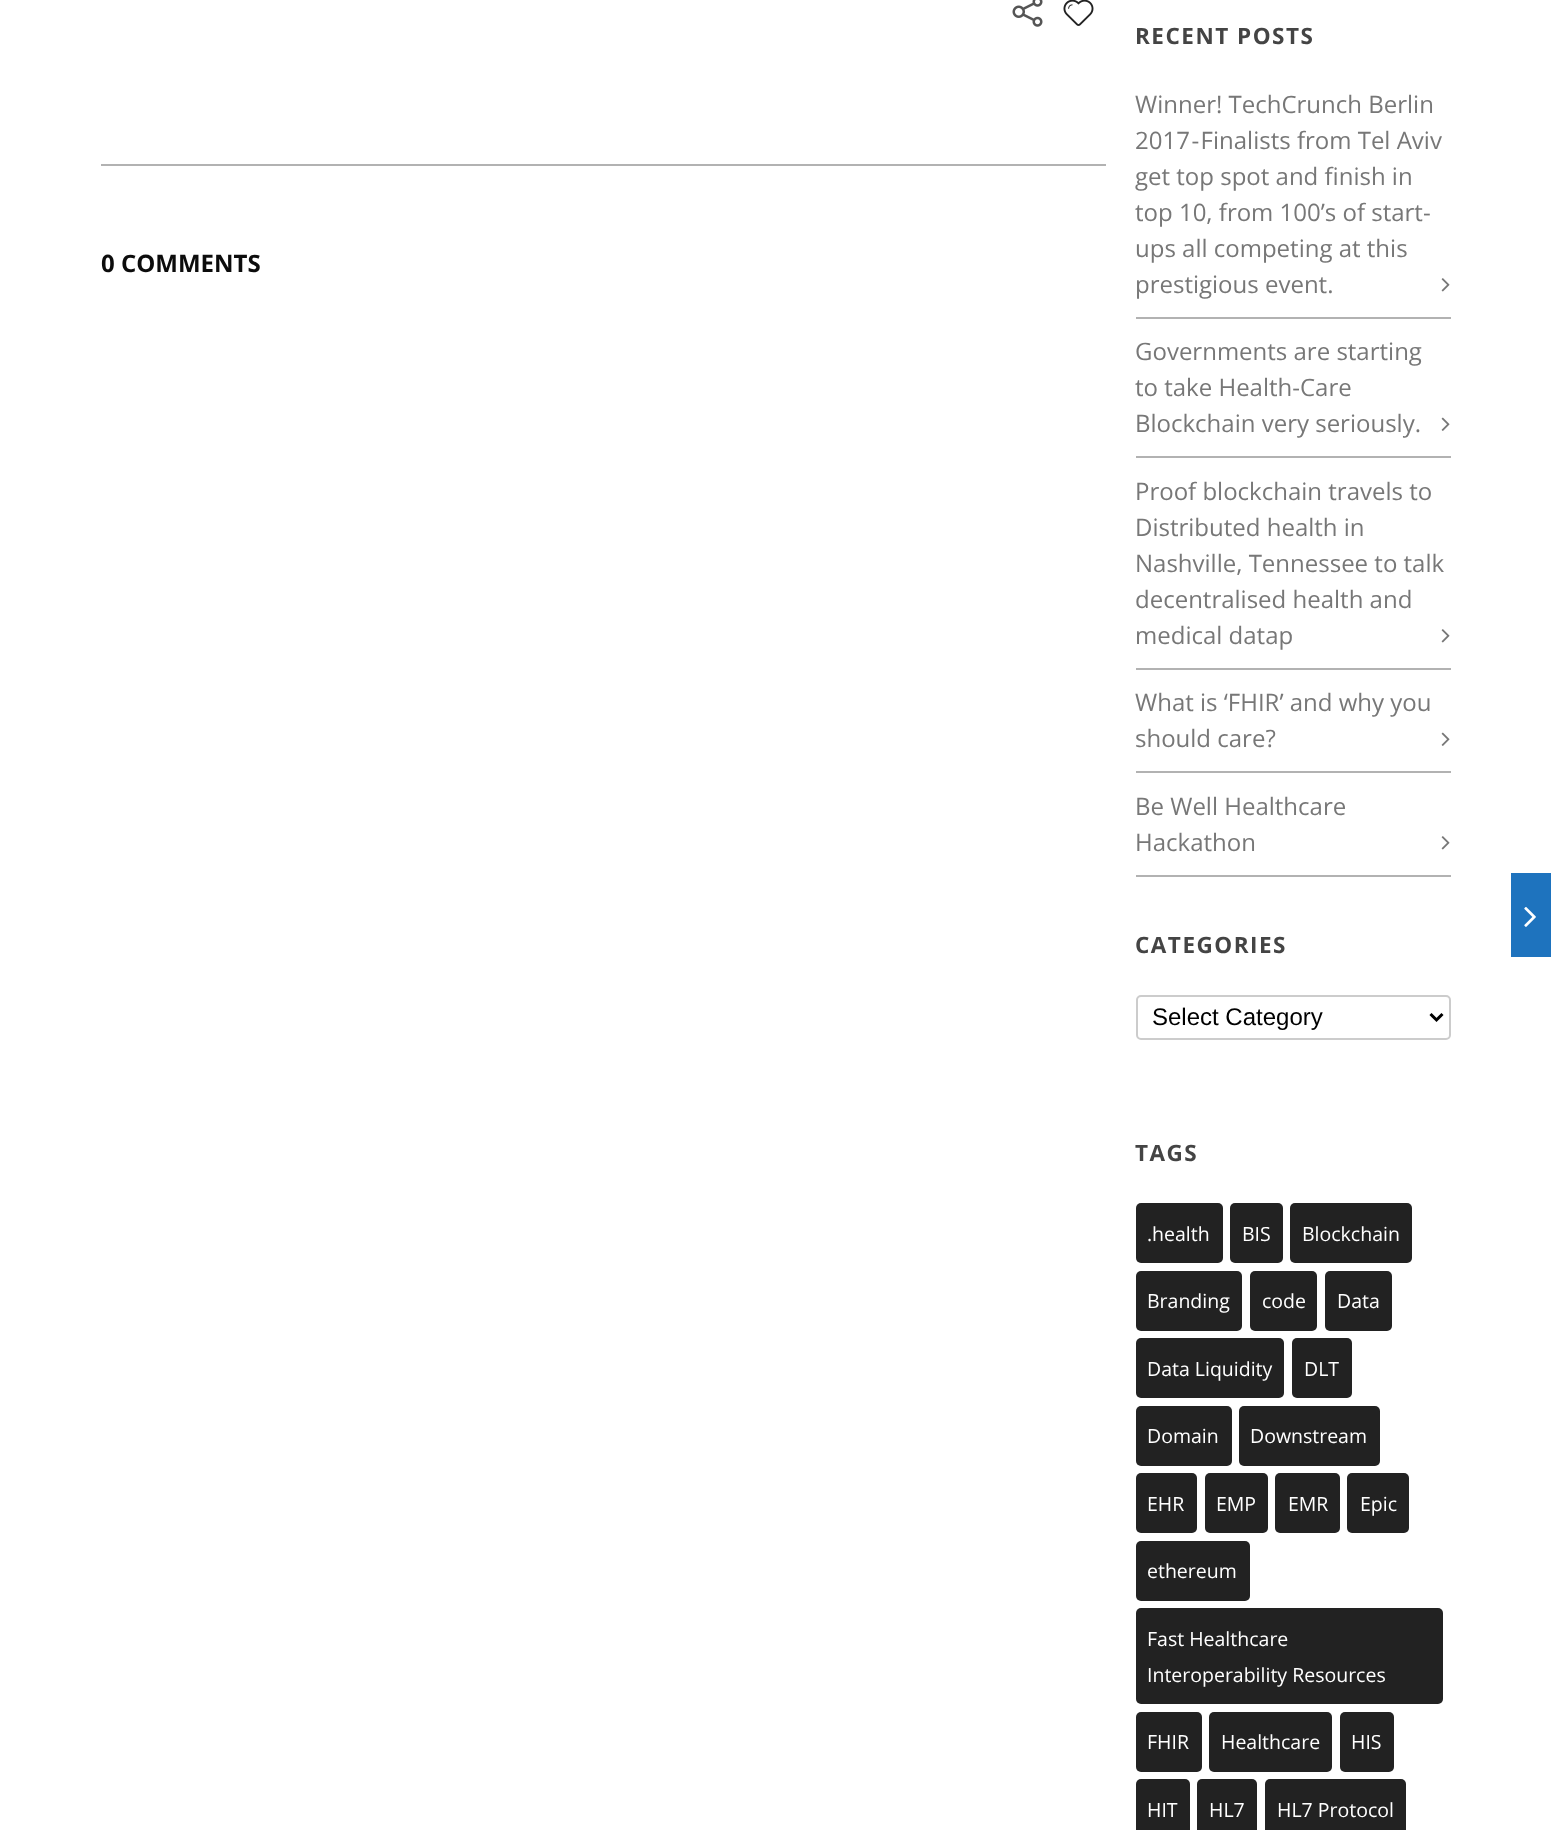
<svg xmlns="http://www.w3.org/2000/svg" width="1551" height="1830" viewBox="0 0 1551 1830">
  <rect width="100%" height="100%" fill="rgb(255,255,255)"/>
  <image x="1012" y="0" width="31" height="27" href="pic1.png"/>
  <image x="1063" y="0" width="31" height="26" href="pic2.png"/>
  <rect x="101" y="164" width="1005" height="2" fill="rgb(178,178,178)"/>
  <text x="101" y="272" font-family="Open Sans" font-size="24" font-weight="bold" fill="rgb(12,12,12)">0 COMMENTS</text>
  <text x="1135" y="44" font-family="Open Sans" font-size="22.5" font-weight="bold" letter-spacing="1.5" fill="rgb(68,68,68)">RECENT POSTS</text>
  <rect x="1136" y="317" width="315" height="2" fill="rgb(178,178,178)"/>
  <g font-family="Open Sans" font-size="24" fill="rgb(119,119,119)">
    <text>
      <tspan x="1135" y="113">Winner! TechCrunch Berlin</tspan>
      <tspan x="1135" y="149">2017 - Finalists from Tel Aviv</tspan>
      <tspan x="1135" y="185">get top spot and finish in</tspan>
      <tspan x="1135" y="221">top 10, from 100’s of start-</tspan>
      <tspan x="1135" y="257">ups all competing at this</tspan>
      <tspan x="1135" y="293">prestigious event.</tspan>
    </text>
  </g>
  <image x="1441" y="278" width="9" height="14" href="pic3.png"/>
  <rect x="1136" y="456" width="315" height="2" fill="rgb(178,178,178)"/>
  <g font-family="Open Sans" font-size="24" fill="rgb(119,119,119)">
    <text>
      <tspan x="1135" y="360">Governments are starting</tspan>
      <tspan x="1135" y="396">to take Health-Care</tspan>
      <tspan x="1135" y="432">Blockchain very seriously.</tspan>
    </text>
  </g>
  <image x="1441" y="417" width="9" height="14" href="pic4.png"/>
  <rect x="1136" y="668" width="315" height="2" fill="rgb(178,178,178)"/>
  <g font-family="Open Sans" font-size="24" fill="rgb(119,119,119)">
    <text>
      <tspan x="1135" y="500">Proof blockchain travels to</tspan>
      <tspan x="1135" y="536">Distributed health in</tspan>
      <tspan x="1135" y="572">Nashville, Tennessee to talk</tspan>
      <tspan x="1135" y="608">decentralised health and</tspan>
      <tspan x="1135" y="644">medical datap</tspan>
    </text>
  </g>
  <image x="1441" y="629" width="9" height="14" href="pic3.png"/>
  <rect x="1136" y="771" width="315" height="2" fill="rgb(178,178,178)"/>
  <g font-family="Open Sans" font-size="24" fill="rgb(119,119,119)">
    <text>
      <tspan x="1135" y="711">What is ‘FHIR’ and why you</tspan>
      <tspan x="1135" y="747">should care?</tspan>
    </text>
  </g>
  <image x="1441" y="732" width="9" height="14" href="pic4.png"/>
  <rect x="1136" y="875" width="315" height="2" fill="rgb(178,178,178)"/>
  <g font-family="Open Sans" font-size="24" fill="rgb(119,119,119)">
    <text>
      <tspan x="1135" y="815">Be Well Healthcare</tspan>
      <tspan x="1135" y="851">Hackathon</tspan>
    </text>
  </g>
  <image x="1441" y="836" width="9" height="14" href="pic3.png"/>
  <text x="1135" y="953" font-family="Open Sans" font-size="22.5" font-weight="bold" letter-spacing="1.5" fill="rgb(68,68,68)">CATEGORIES</text>
  <rect x="1137" y="996" width="313" height="43" rx="4" fill="none" stroke="rgb(204,204,204)" stroke-width="2"/>
  <path d="M1430.5 1014L1436.5 1020L1442.5 1014" fill="none" stroke="rgb(0,0,0)" stroke-width="3"/>
  <text x="1152" y="1025" font-family="Liberation Sans" font-size="24" fill="rgb(0,0,0)">Select Category</text>
  <text x="1135" y="1161" font-family="Open Sans" font-size="22.5" font-weight="bold" letter-spacing="1.5" fill="rgb(68,68,68)">TAGS</text>
  <rect x="1136" y="1203" width="87" height="60" rx="5" fill="rgb(34,34,34)"/>
  <text x="1147" y="1241" font-family="Open Sans" font-size="19.5" fill="rgb(255,255,255)">.health</text>
  <rect x="1230" y="1203" width="53" height="60" rx="5" fill="rgb(34,34,34)"/>
  <text x="1242" y="1241" font-family="Open Sans" font-size="19.5" fill="rgb(255,255,255)">BIS</text>
  <rect x="1290" y="1203" width="122" height="60" rx="5" fill="rgb(34,34,34)"/>
  <text x="1302" y="1241" font-family="Open Sans" font-size="19.5" fill="rgb(255,255,255)">Blockchain</text>
  <rect x="1136" y="1271" width="106" height="60" rx="5" fill="rgb(34,34,34)"/>
  <text x="1147" y="1308" font-family="Open Sans" font-size="19.5" fill="rgb(255,255,255)">Branding</text>
  <rect x="1250" y="1271" width="67" height="60" rx="5" fill="rgb(34,34,34)"/>
  <text x="1262" y="1308" font-family="Open Sans" font-size="19.5" fill="rgb(255,255,255)">code</text>
  <rect x="1325" y="1271" width="67" height="60" rx="5" fill="rgb(34,34,34)"/>
  <text x="1337" y="1308" font-family="Open Sans" font-size="19.5" fill="rgb(255,255,255)">Data</text>
  <rect x="1136" y="1338" width="148" height="60" rx="5" fill="rgb(34,34,34)"/>
  <text x="1147" y="1376" font-family="Open Sans" font-size="19.5" fill="rgb(255,255,255)">Data Liquidity</text>
  <rect x="1292" y="1338" width="60" height="60" rx="5" fill="rgb(34,34,34)"/>
  <text x="1304" y="1376" font-family="Open Sans" font-size="19.5" fill="rgb(255,255,255)">DLT</text>
  <rect x="1136" y="1406" width="96" height="60" rx="5" fill="rgb(34,34,34)"/>
  <text x="1147" y="1443" font-family="Open Sans" font-size="19.5" fill="rgb(255,255,255)">Domain</text>
  <rect x="1239" y="1406" width="141" height="60" rx="5" fill="rgb(34,34,34)"/>
  <text x="1250" y="1443" font-family="Open Sans" font-size="19.5" fill="rgb(255,255,255)">Downstream</text>
  <rect x="1136" y="1473" width="61" height="60" rx="5" fill="rgb(34,34,34)"/>
  <text x="1147" y="1511" font-family="Open Sans" font-size="19.5" fill="rgb(255,255,255)">EHR</text>
  <rect x="1205" y="1473" width="63" height="60" rx="5" fill="rgb(34,34,34)"/>
  <text x="1216" y="1511" font-family="Open Sans" font-size="19.5" fill="rgb(255,255,255)">EMP</text>
  <rect x="1275" y="1473" width="65" height="60" rx="5" fill="rgb(34,34,34)"/>
  <text x="1288" y="1511" font-family="Open Sans" font-size="19.5" fill="rgb(255,255,255)">EMR</text>
  <rect x="1347" y="1473" width="62" height="60" rx="5" fill="rgb(34,34,34)"/>
  <text x="1360" y="1511" font-family="Open Sans" font-size="19.5" fill="rgb(255,255,255)">Epic</text>
  <rect x="1136" y="1541" width="114" height="60" rx="5" fill="rgb(34,34,34)"/>
  <text x="1147" y="1578" font-family="Open Sans" font-size="19.5" fill="rgb(255,255,255)">ethereum</text>
  <rect x="1136" y="1608" width="307" height="96" rx="5" fill="rgb(34,34,34)"/>
  <g font-family="Open Sans" font-size="19.5" fill="rgb(255,255,255)">
    <text>
      <tspan x="1147" y="1646">Fast Healthcare</tspan>
      <tspan x="1147" y="1682">Interoperability Resources</tspan>
    </text>
  </g>
  <rect x="1136" y="1712" width="66" height="60" rx="5" fill="rgb(34,34,34)"/>
  <text x="1147" y="1749" font-family="Open Sans" font-size="19.5" fill="rgb(255,255,255)">FHIR</text>
  <rect x="1209" y="1712" width="123" height="60" rx="5" fill="rgb(34,34,34)"/>
  <text x="1221" y="1749" font-family="Open Sans" font-size="19.5" fill="rgb(255,255,255)">Healthcare</text>
  <rect x="1340" y="1712" width="54" height="60" rx="5" fill="rgb(34,34,34)"/>
  <text x="1351" y="1749" font-family="Open Sans" font-size="19.5" fill="rgb(255,255,255)">HIS</text>
  <rect x="1136" y="1779" width="54" height="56" rx="5" fill="rgb(34,34,34)"/>
  <text x="1147" y="1817" font-family="Open Sans" font-size="19.5" fill="rgb(255,255,255)">HIT</text>
  <rect x="1197" y="1779" width="60" height="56" rx="5" fill="rgb(34,34,34)"/>
  <text x="1209" y="1817" font-family="Open Sans" font-size="19.5" fill="rgb(255,255,255)">HL7</text>
  <rect x="1265" y="1779" width="141" height="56" rx="5" fill="rgb(34,34,34)"/>
  <text x="1277" y="1817" font-family="Open Sans" font-size="19.5" fill="rgb(255,255,255)">HL7 Protocol</text>
  <rect x="1511" y="873" width="40" height="84" fill="rgb(30,115,190)"/>
  <image x="1524" y="907" width="12" height="20" href="pic5.png"/>
</svg>
